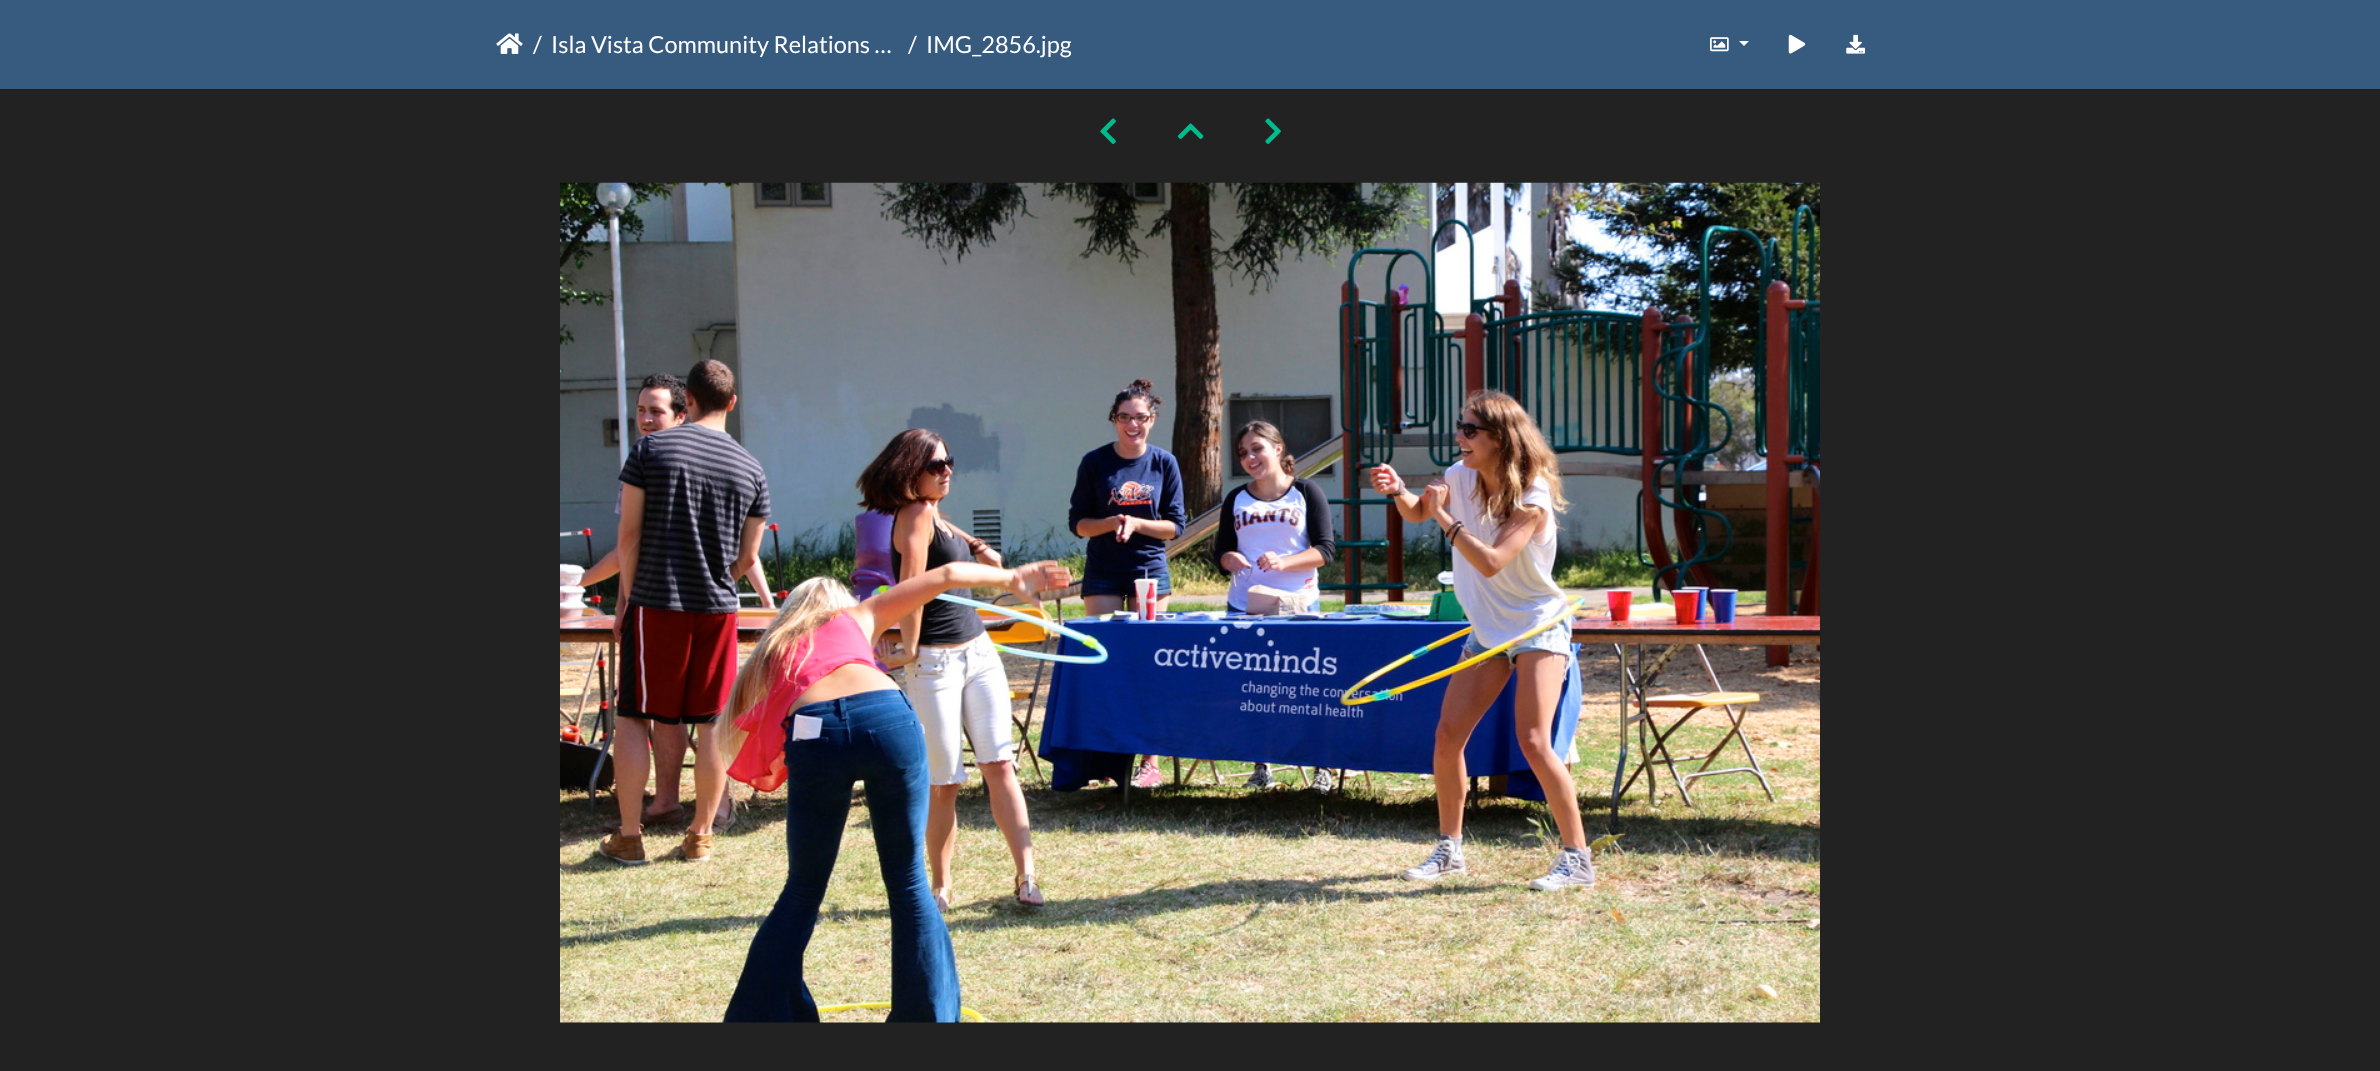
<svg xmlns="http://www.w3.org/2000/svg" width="2380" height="1071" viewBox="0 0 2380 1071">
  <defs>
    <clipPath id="clip1"><rect x="898" y="26" width="173" height="35"/></clipPath>
  </defs>
  <rect width="100%" height="100%" fill="rgb(34,34,34)"/>
  <rect x="0" y="0" width="2380" height="89" fill="rgb(55,90,127)"/>
  <image x="496" y="33" width="27" height="21" href="pic1.png"/>
  <g font-family="Lato" font-size="23.5" fill="rgb(255,255,255)">
    <text x="533" y="53">/</text>
    <text x="551" y="53">Isla Vista Community Relations …</text>
    <text x="908" y="53">/</text>
  </g>
  <g clip-path="url(#clip1)">
    <text x="926" y="53" font-family="Lato" font-size="23.5" fill="rgb(255,255,255)">IMG_2856.jpg</text>
  </g>
  <image x="1710" y="37" width="19" height="15" href="pic2.png"/>
  <path d="M1739 41H1749L1744 46Z" fill="rgb(255,255,255)"/>
  <image x="1788" y="34" width="18" height="20" href="pic3.png"/>
  <image x="1846" y="34" width="19" height="20" href="pic4.png"/>
  <image x="1100" y="118" width="16" height="26" href="pic5.png"/>
  <image x="1177" y="123" width="27" height="16" href="pic6.png"/>
  <image x="1265" y="118" width="16" height="26" href="pic7.png"/>
  <image x="560" y="182" width="1260" height="841" href="pic8.png"/>
</svg>
